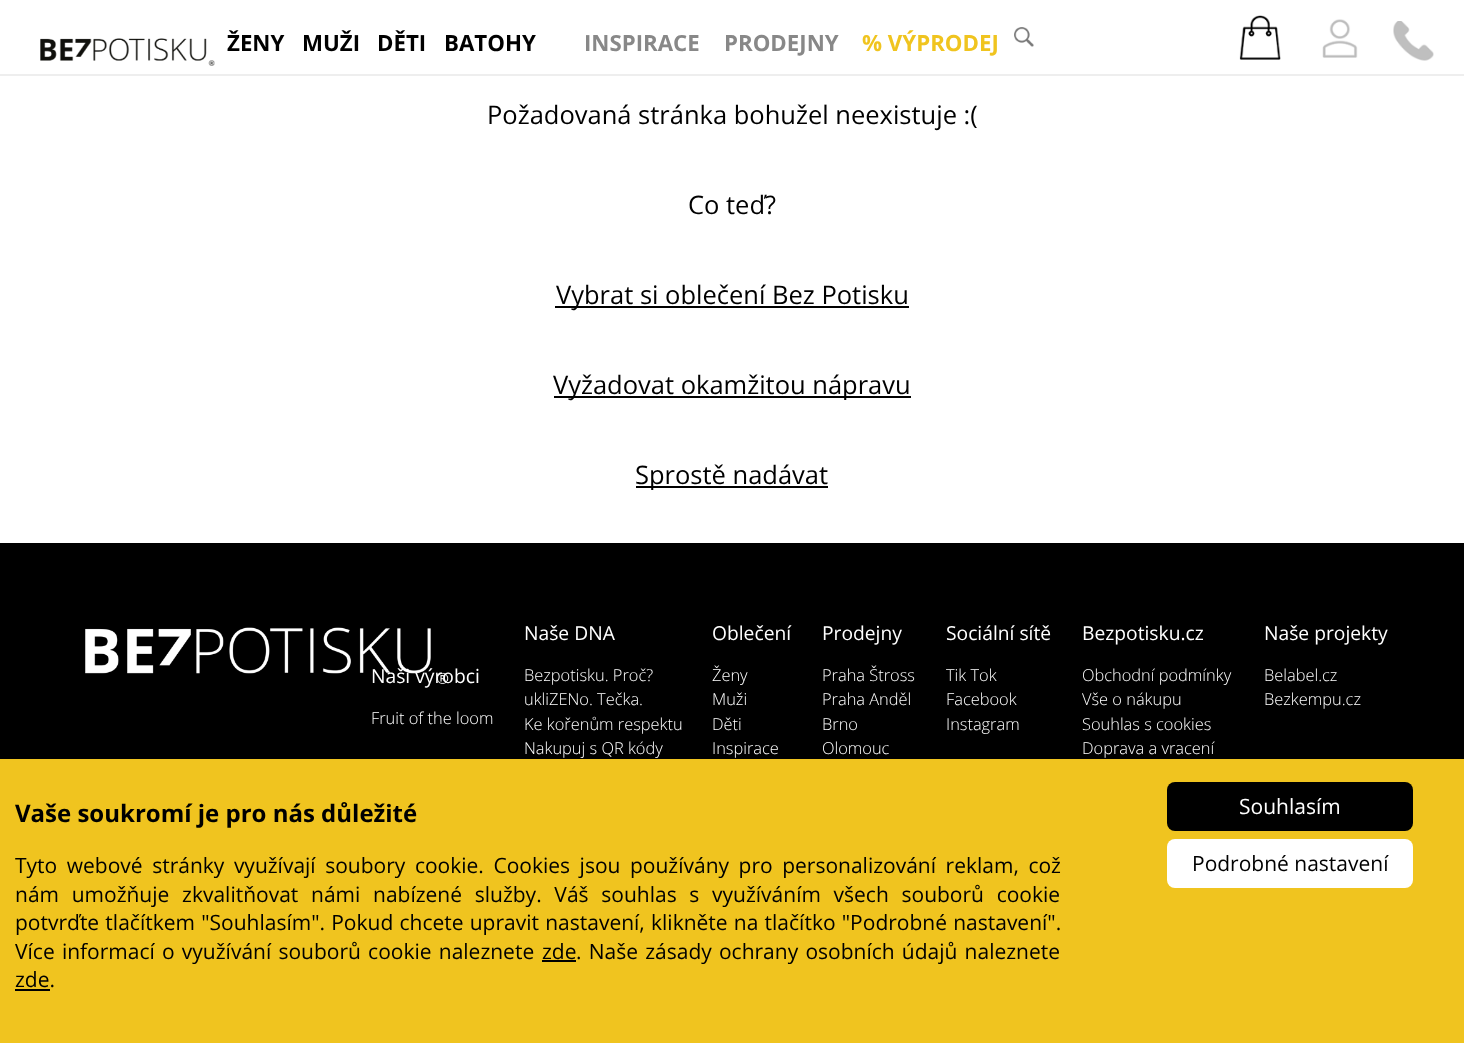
<svg xmlns="http://www.w3.org/2000/svg" width="1464" height="1043" viewBox="0 0 1464 1043">
  <rect width="100%" height="100%" fill="rgb(255,255,255)"/>
  <rect x="0" y="74" width="1464" height="2" fill="rgb(238,238,238)"/>
  <image x="40" y="38" width="175" height="28" href="pic1.png"/>
  <g font-family="Open Sans" font-size="22.25" font-weight="bold" fill="rgb(0,0,0)">
    <text x="227" y="51">ŽENY</text>
    <text x="302" y="51">MUŽI</text>
    <text x="377" y="51">DĚTI</text>
    <text x="444" y="51">BATOHY</text>
  </g>
  <g font-family="Open Sans" font-size="22.25" font-weight="bold" fill="rgb(136,136,136)">
    <text x="584" y="51">INSPIRACE</text>
    <text x="724" y="51">PRODEJNY</text>
  </g>
  <text x="862" y="51" font-family="Open Sans" font-size="22.25" font-weight="bold" fill="rgb(240,196,31)">% VÝPRODEJ</text>
  <image x="1014" y="27" width="20" height="20" href="pic2.png"/>
  <image x="1239" y="15" width="42" height="45" href="pic3.png"/>
  <image x="1322" y="19" width="36" height="39" href="pic4.png"/>
  <image x="1393" y="21" width="41" height="40" href="pic5.png"/>
  <g font-family="Open Sans" font-size="25.5" fill="rgb(0,0,0)">
    <text x="487" y="124">Požadovaná stránka bohužel neexistuje :(</text>
    <text x="688" y="214">Co teď?</text>
  </g>
  <rect x="555" y="306" width="354" height="2" fill="rgb(0,0,0)"/>
  <text x="556" y="304" font-family="Open Sans" font-size="25.5" fill="rgb(0,0,0)">Vybrat si oblečení Bez Potisku</text>
  <rect x="554" y="396" width="357" height="2" fill="rgb(0,0,0)"/>
  <text x="553" y="394" font-family="Open Sans" font-size="25.5" fill="rgb(0,0,0)">Vyžadovat okamžitou nápravu</text>
  <rect x="636" y="486" width="192" height="2" fill="rgb(0,0,0)"/>
  <text x="635" y="484" font-family="Open Sans" font-size="25.5" fill="rgb(0,0,0)">Sprostě nadávat</text>
  <rect x="0" y="543" width="1464" height="216" fill="rgb(0,0,0)"/>
  <image x="85" y="627" width="364" height="57" href="pic6.png"/>
  <text x="524" y="640" font-family="Open Sans" font-size="19.25" fill="rgb(255,255,255)">Naše DNA</text>
  <g font-family="Open Sans" font-size="16.4" font-weight="300" fill="rgb(255,255,255)">
    <text>
      <tspan x="524" y="681">Bezpotisku. Proč?</tspan>
      <tspan x="524" y="705">ukliZENo. Tečka.</tspan>
      <tspan x="524" y="730">Ke kořenům respektu</tspan>
      <tspan x="524" y="754">Nakupuj s QR kódy</tspan>
    </text>
  </g>
  <text x="712" y="640" font-family="Open Sans" font-size="19.25" fill="rgb(255,255,255)">Oblečení</text>
  <g font-family="Open Sans" font-size="16.4" font-weight="300" fill="rgb(255,255,255)">
    <text>
      <tspan x="712" y="681">Ženy</tspan>
      <tspan x="712" y="705">Muži</tspan>
      <tspan x="712" y="730">Děti</tspan>
      <tspan x="712" y="754">Inspirace</tspan>
    </text>
  </g>
  <text x="822" y="640" font-family="Open Sans" font-size="19.25" fill="rgb(255,255,255)">Prodejny</text>
  <g font-family="Open Sans" font-size="16.4" font-weight="300" fill="rgb(255,255,255)">
    <text>
      <tspan x="822" y="681">Praha Štross</tspan>
      <tspan x="822" y="705">Praha Anděl</tspan>
      <tspan x="822" y="730">Brno</tspan>
      <tspan x="822" y="754">Olomouc</tspan>
    </text>
  </g>
  <text x="946" y="640" font-family="Open Sans" font-size="19.25" fill="rgb(255,255,255)">Sociální sítě</text>
  <g font-family="Open Sans" font-size="16.4" font-weight="300" fill="rgb(255,255,255)">
    <text>
      <tspan x="946" y="681">Tik Tok</tspan>
      <tspan x="946" y="705">Facebook</tspan>
      <tspan x="946" y="730">Instagram</tspan>
    </text>
  </g>
  <text x="1082" y="640" font-family="Open Sans" font-size="19.25" fill="rgb(255,255,255)">Bezpotisku.cz</text>
  <g font-family="Open Sans" font-size="16.4" font-weight="300" fill="rgb(255,255,255)">
    <text>
      <tspan x="1082" y="681">Obchodní podmínky</tspan>
      <tspan x="1082" y="705">Vše o nákupu</tspan>
      <tspan x="1082" y="730">Souhlas s cookies</tspan>
      <tspan x="1082" y="754">Doprava a vracení</tspan>
    </text>
  </g>
  <text x="1264" y="640" font-family="Open Sans" font-size="19.25" fill="rgb(255,255,255)">Naše projekty</text>
  <g font-family="Open Sans" font-size="16.4" font-weight="300" fill="rgb(255,255,255)">
    <text>
      <tspan x="1264" y="681">Belabel.cz</tspan>
      <tspan x="1264" y="705">Bezkempu.cz</tspan>
    </text>
  </g>
  <text x="371" y="683" font-family="Open Sans" font-size="19.25" fill="rgb(255,255,255)">Naši výrobci</text>
  <text x="371" y="724" font-family="Open Sans" font-size="16.4" font-weight="300" fill="rgb(255,255,255)">Fruit of the loom</text>
  <rect x="0" y="759" width="1464" height="284" fill="rgb(240,196,31)"/>
  <text x="15" y="822" font-family="Open Sans" font-size="24" font-weight="bold" fill="rgb(0,0,0)">Vaše soukromí je pro nás důležité</text>
  <g font-family="Open Sans" font-size="21" fill="rgb(0,0,0)">
    <text>
      <tspan x="15" y="873" word-spacing="4.1">Tyto webové stránky využívají soubory cookie. Cookies jsou používány pro personalizování reklam, což</tspan>
      <tspan x="15" y="902" word-spacing="7.25">nám umožňuje zkvalitňovat námi nabízené služby. Váš souhlas s využíváním všech souborů cookie</tspan>
      <tspan x="15" y="930" word-spacing="0.75">potvrďte tlačítkem "Souhlasím". Pokud chcete upravit nastavení, klikněte na tlačítko "Podrobné nastavení".</tspan>
      <tspan x="15" y="959" word-spacing="1.75">Více informací o využívání souborů cookie naleznete</tspan>
    </text>
    <text x="542" y="959">zde</text>
  </g>
  <rect x="542" y="960" width="34" height="2" fill="rgb(0,0,0)"/>
  <g font-family="Open Sans" font-size="21" fill="rgb(0,0,0)">
    <text x="576" y="959" word-spacing="1.75">. Naše zásady ochrany osobních údajů naleznete</text>
    <text x="15" y="987">zde.</text>
  </g>
  <rect x="15" y="989" width="35" height="2" fill="rgb(0,0,0)"/>
  <rect x="1167" y="782" width="246" height="49" rx="8" fill="rgb(0,0,0)"/>
  <text x="1239" y="814" font-family="Open Sans" font-size="21" fill="rgb(255,255,255)">Souhlasím</text>
  <rect x="1167" y="839" width="246" height="49" rx="8" fill="rgb(255,255,255)"/>
  <text x="1192" y="871" font-family="Open Sans" font-size="21" fill="rgb(0,0,0)">Podrobné nastavení</text>
</svg>
